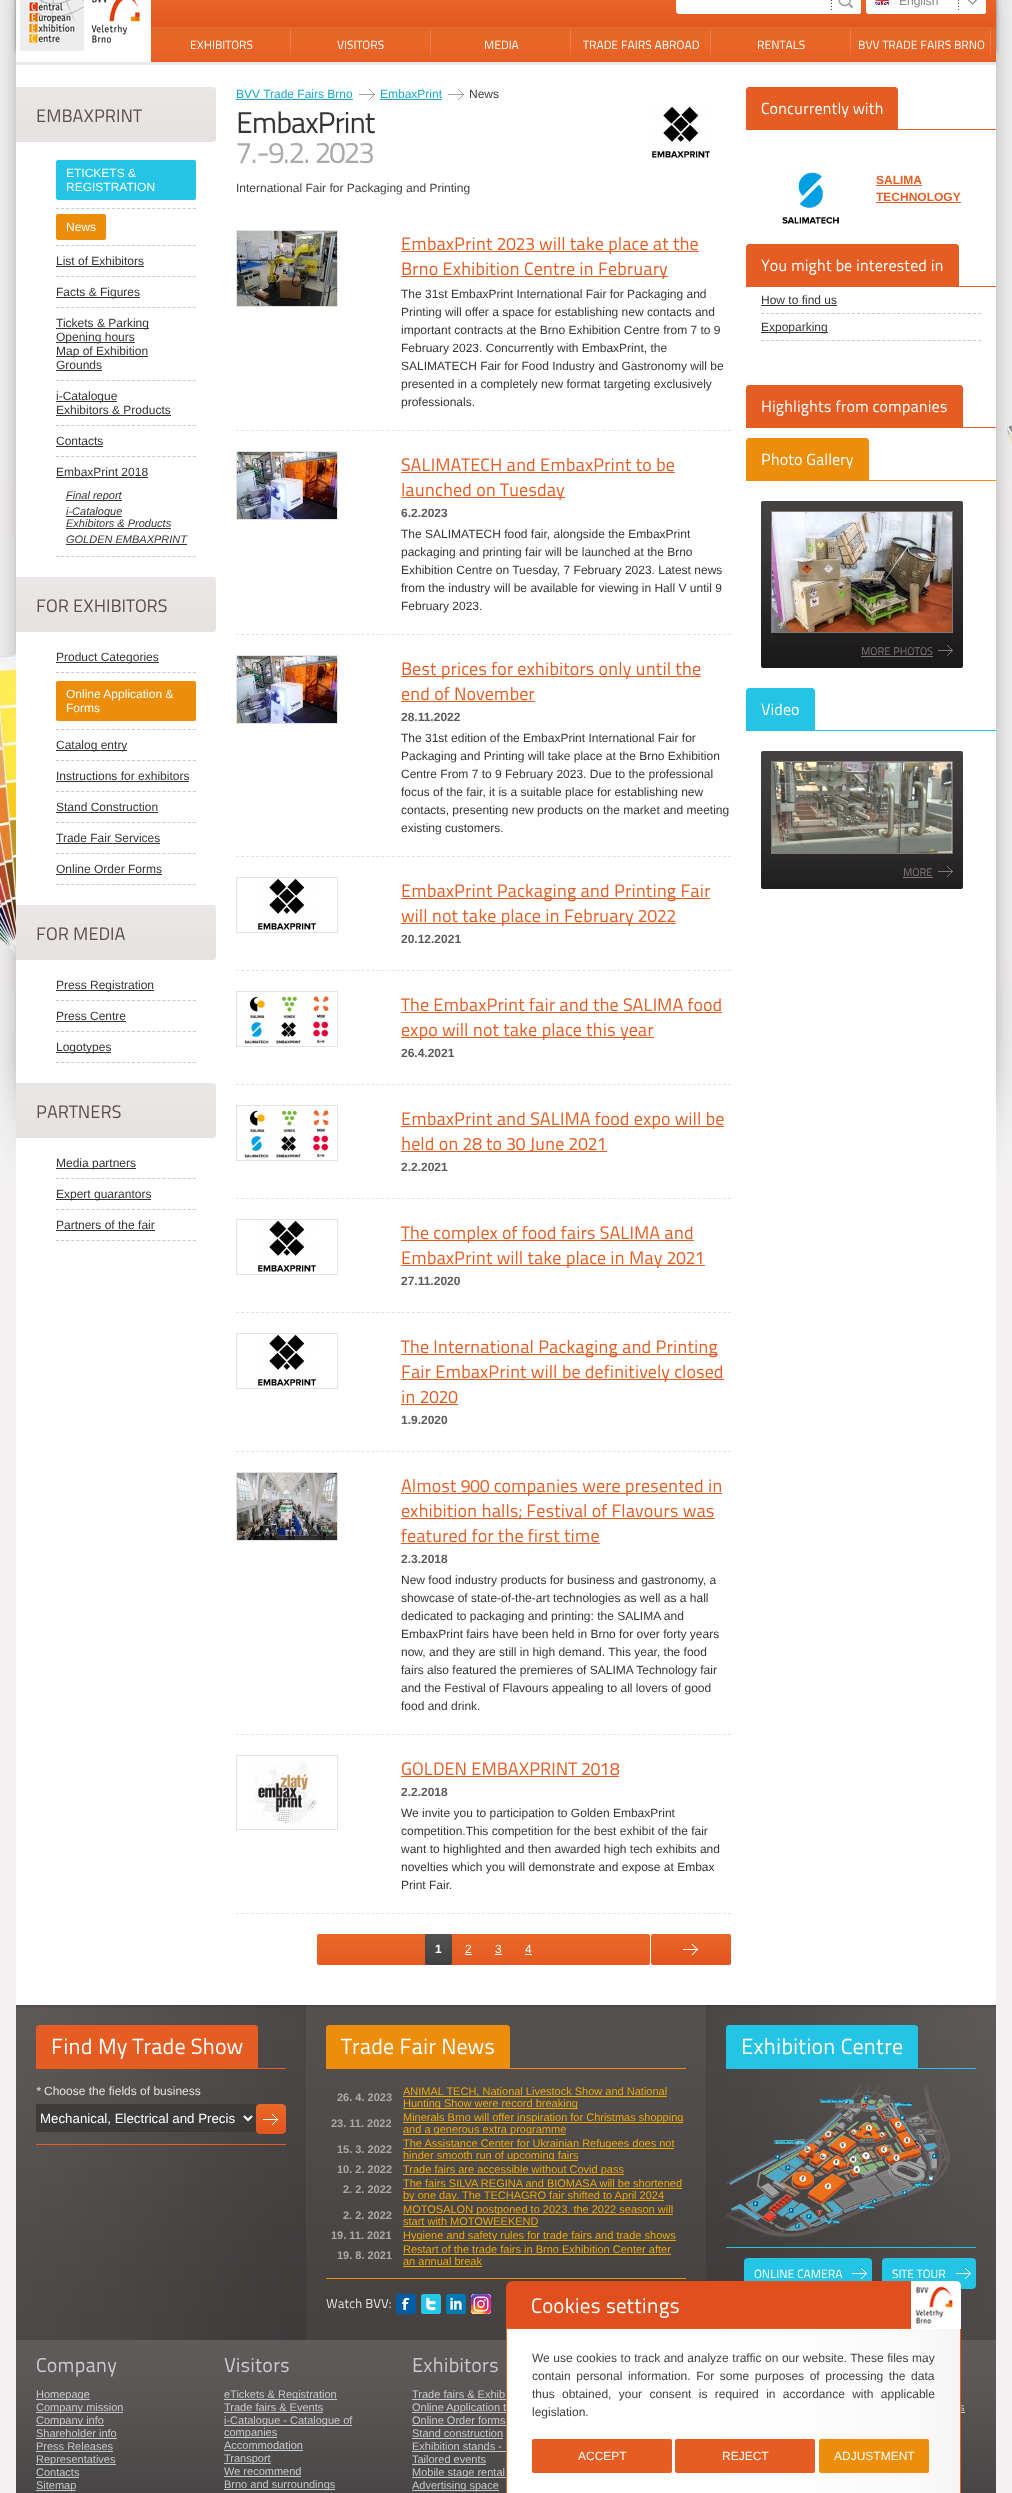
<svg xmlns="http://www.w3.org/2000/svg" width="1012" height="2493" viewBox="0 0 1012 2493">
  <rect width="100%" height="100%" fill="rgb(243,241,242)"/>
  <image x="0" y="0" width="1012" height="1181" href="pic1.png"/>
  <image x="151" y="0" width="845" height="27" href="pic2.png"/>
  <rect x="16" y="0" width="135" height="62" fill="rgb(255,255,255)"/>
  <image x="20" y="0" width="120" height="51" href="pic3.png"/>
  <path d="M679-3H831V14H679C677.5 14 676 12.5 676 11V0C676-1.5 677.5-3 679-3Z" fill="rgb(255,255,255)"/>
  <image x="831" y="0" width="30" height="14" href="pic4.png"/>
  <rect x="866" y="-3" width="120" height="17" rx="3" fill="rgb(255,255,255)"/>
  <image x="958" y="0" width="28" height="14" href="pic5.png"/>
  <image x="875" y="0" width="14" height="5" href="pic6.png"/>
  <text x="899" y="5" font-family="Liberation Sans" font-size="12" fill="rgb(135,133,133)">English</text>
  <image x="151" y="27" width="845" height="35" href="pic7.png"/>
  <image x="290" y="27" width="1" height="35" href="pic8.png"/>
  <text x="190" y="49" font-family="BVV" font-size="12" fill="rgb(255,255,255)">EXHIBITORS</text>
  <image x="430" y="27" width="1" height="35" href="pic8.png"/>
  <text x="337" y="49" font-family="BVV" font-size="12" fill="rgb(255,255,255)">VISITORS</text>
  <image x="570" y="27" width="1" height="35" href="pic8.png"/>
  <text x="484" y="49" font-family="BVV" font-size="12" fill="rgb(255,255,255)">MEDIA</text>
  <image x="710" y="27" width="1" height="35" href="pic8.png"/>
  <text x="583" y="49" font-family="BVV" font-size="12" fill="rgb(255,255,255)">TRADE FAIRS ABROAD</text>
  <image x="850" y="27" width="1" height="35" href="pic8.png"/>
  <text x="757" y="49" font-family="BVV" font-size="12" fill="rgb(255,255,255)">RENTALS</text>
  <image x="990" y="27" width="1" height="35" href="pic8.png"/>
  <text x="858" y="49" font-family="BVV" font-size="12" fill="rgb(255,255,255)">BVV TRADE FAIRS BRNO</text>
  <rect x="16" y="65" width="980" height="1940" fill="rgb(255,255,255)"/>
  <rect x="16" y="62" width="980" height="3" fill="rgb(233,233,233)"/>
  <image x="16" y="87" width="200" height="55" href="pic9.png"/>
  <text x="36" y="122" font-family="BVV" font-size="18" fill="rgb(93,77,77)">EMBAXPRINT</text>
  <path d="M56 208.5H196" fill="none" stroke="rgb(205,200,200)" stroke-dasharray="3 2.07"/>
  <rect x="56" y="160" width="140" height="40" rx="2" fill="rgb(35,196,230)"/>
  <g font-family="Liberation Sans" font-size="12" fill="rgb(255,255,255)">
    <text>
      <tspan x="66" y="177">ETICKETS &amp;</tspan>
      <tspan x="66" y="191">REGISTRATION</tspan>
    </text>
  </g>
  <path d="M56 245.5H196" fill="none" stroke="rgb(205,200,200)" stroke-dasharray="3 2.07"/>
  <rect x="56" y="214" width="50" height="26" rx="2" fill="rgb(236,141,11)"/>
  <text x="66" y="231" font-family="Liberation Sans" font-size="12" fill="rgb(255,255,255)">News</text>
  <path d="M56 276.5H196" fill="none" stroke="rgb(205,200,200)" stroke-dasharray="3 2.07"/>
  <text x="56" y="265" font-family="Liberation Sans" font-size="12" fill="rgb(55,52,52)">List of Exhibitors</text>
  <rect x="56" y="266" width="88" height="1" fill="rgb(55,52,52)"/>
  <path d="M56 307.5H196" fill="none" stroke="rgb(205,200,200)" stroke-dasharray="3 2.07"/>
  <rect x="56" y="297" width="84" height="1" fill="rgb(55,52,52)"/>
  <text x="56" y="296" font-family="Liberation Sans" font-size="12" fill="rgb(55,52,52)">Facts &amp; Figures</text>
  <path d="M56 380.5H196" fill="none" stroke="rgb(205,200,200)" stroke-dasharray="3 2.07"/>
  <rect x="56" y="328" width="93" height="1" fill="rgb(55,52,52)"/>
  <text x="56" y="327" font-family="Liberation Sans" font-size="12" fill="rgb(55,52,52)">Tickets &amp; Parking</text>
  <rect x="56" y="342" width="79" height="1" fill="rgb(55,52,52)"/>
  <text x="56" y="341" font-family="Liberation Sans" font-size="12" fill="rgb(55,52,52)">Opening hours</text>
  <rect x="56" y="356" width="92" height="1" fill="rgb(55,52,52)"/>
  <g font-family="Liberation Sans" font-size="12" fill="rgb(55,52,52)">
    <text>
      <tspan x="56" y="355">Map of Exhibition</tspan>
      <tspan x="56" y="369">Grounds</tspan>
    </text>
  </g>
  <rect x="56" y="370" width="46" height="1" fill="rgb(55,52,52)"/>
  <path d="M56 425.5H196" fill="none" stroke="rgb(205,200,200)" stroke-dasharray="3 2.07"/>
  <rect x="56" y="401" width="61" height="1" fill="rgb(55,52,52)"/>
  <g font-family="Liberation Sans" font-size="12" fill="rgb(55,52,52)">
    <text>
      <tspan x="56" y="400">i-Catalogue</tspan>
      <tspan x="56" y="414">Exhibitors &amp; Products</tspan>
    </text>
  </g>
  <rect x="56" y="415" width="115" height="1" fill="rgb(55,52,52)"/>
  <path d="M56 456.5H196" fill="none" stroke="rgb(205,200,200)" stroke-dasharray="3 2.07"/>
  <text x="56" y="445" font-family="Liberation Sans" font-size="12" fill="rgb(55,52,52)">Contacts</text>
  <rect x="56" y="446" width="47" height="1" fill="rgb(55,52,52)"/>
  <path d="M56 556.5H196" fill="none" stroke="rgb(205,200,200)" stroke-dasharray="3 2.07"/>
  <text x="56" y="476" font-family="Liberation Sans" font-size="12" fill="rgb(55,52,52)">EmbaxPrint 2018</text>
  <rect x="56" y="477" width="92" height="1" fill="rgb(55,52,52)"/>
  <rect x="66" y="500" width="56" height="1" fill="rgb(55,52,52)"/>
  <text x="66" y="499" font-family="Liberation Sans" font-size="11" font-style="italic" fill="rgb(55,52,52)">Final report</text>
  <rect x="66" y="516" width="56" height="1" fill="rgb(55,52,52)"/>
  <g font-family="Liberation Sans" font-size="11" font-style="italic" fill="rgb(55,52,52)">
    <text>
      <tspan x="66" y="515">i-Catalogue</tspan>
      <tspan x="66" y="527">Exhibitors &amp; Products</tspan>
    </text>
  </g>
  <rect x="66" y="528" width="105" height="1" fill="rgb(55,52,52)"/>
  <text x="66" y="543" font-family="Liberation Sans" font-size="11" font-style="italic" fill="rgb(55,52,52)">GOLDEN EMBAXPRINT</text>
  <rect x="66" y="544" width="121" height="1" fill="rgb(55,52,52)"/>
  <image x="16" y="577" width="200" height="55" href="pic9.png"/>
  <text x="36" y="612" font-family="BVV" font-size="18" fill="rgb(93,77,77)">FOR EXHIBITORS</text>
  <path d="M56 672.5H196" fill="none" stroke="rgb(205,200,200)" stroke-dasharray="3 2.07"/>
  <rect x="56" y="662" width="103" height="1" fill="rgb(55,52,52)"/>
  <text x="56" y="661" font-family="Liberation Sans" font-size="12" fill="rgb(55,52,52)">Product Categories</text>
  <path d="M56 729.5H196" fill="none" stroke="rgb(205,200,200)" stroke-dasharray="3 2.07"/>
  <rect x="56" y="681" width="140" height="40" rx="2" fill="rgb(236,141,11)"/>
  <g font-family="Liberation Sans" font-size="12" fill="rgb(255,255,255)">
    <text>
      <tspan x="66" y="698">Online Application &amp;</tspan>
      <tspan x="66" y="712">Forms</tspan>
    </text>
  </g>
  <path d="M56 760.5H196" fill="none" stroke="rgb(205,200,200)" stroke-dasharray="3 2.07"/>
  <rect x="56" y="750" width="71" height="1" fill="rgb(55,52,52)"/>
  <text x="56" y="749" font-family="Liberation Sans" font-size="12" fill="rgb(55,52,52)">Catalog entry</text>
  <path d="M56 791.5H196" fill="none" stroke="rgb(205,200,200)" stroke-dasharray="3 2.07"/>
  <text x="56" y="780" font-family="Liberation Sans" font-size="12" fill="rgb(55,52,52)">Instructions for exhibitors</text>
  <rect x="56" y="781" width="133" height="1" fill="rgb(55,52,52)"/>
  <path d="M56 822.5H196" fill="none" stroke="rgb(205,200,200)" stroke-dasharray="3 2.07"/>
  <text x="56" y="811" font-family="Liberation Sans" font-size="12" fill="rgb(55,52,52)">Stand Construction</text>
  <rect x="56" y="812" width="102" height="1" fill="rgb(55,52,52)"/>
  <path d="M56 853.5H196" fill="none" stroke="rgb(205,200,200)" stroke-dasharray="3 2.07"/>
  <text x="56" y="842" font-family="Liberation Sans" font-size="12" fill="rgb(55,52,52)">Trade Fair Services</text>
  <rect x="56" y="843" width="104" height="1" fill="rgb(55,52,52)"/>
  <path d="M56 884.5H196" fill="none" stroke="rgb(205,200,200)" stroke-dasharray="3 2.07"/>
  <text x="56" y="873" font-family="Liberation Sans" font-size="12" fill="rgb(55,52,52)">Online Order Forms</text>
  <rect x="56" y="874" width="106" height="1" fill="rgb(55,52,52)"/>
  <image x="16" y="905" width="200" height="55" href="pic9.png"/>
  <text x="36" y="940" font-family="BVV" font-size="18" fill="rgb(93,77,77)">FOR MEDIA</text>
  <path d="M56 1000.5H196" fill="none" stroke="rgb(205,200,200)" stroke-dasharray="3 2.07"/>
  <rect x="56" y="990" width="98" height="1" fill="rgb(55,52,52)"/>
  <text x="56" y="989" font-family="Liberation Sans" font-size="12" fill="rgb(55,52,52)">Press Registration</text>
  <path d="M56 1031.5H196" fill="none" stroke="rgb(205,200,200)" stroke-dasharray="3 2.07"/>
  <text x="56" y="1020" font-family="Liberation Sans" font-size="12" fill="rgb(55,52,52)">Press Centre</text>
  <rect x="56" y="1021" width="70" height="1" fill="rgb(55,52,52)"/>
  <path d="M56 1062.5H196" fill="none" stroke="rgb(205,200,200)" stroke-dasharray="3 2.07"/>
  <rect x="56" y="1052" width="55" height="1" fill="rgb(55,52,52)"/>
  <text x="56" y="1051" font-family="Liberation Sans" font-size="12" fill="rgb(55,52,52)">Logotypes</text>
  <image x="16" y="1083" width="200" height="55" href="pic9.png"/>
  <text x="36" y="1118" font-family="BVV" font-size="18" fill="rgb(93,77,77)">PARTNERS</text>
  <path d="M56 1178.5H196" fill="none" stroke="rgb(205,200,200)" stroke-dasharray="3 2.07"/>
  <rect x="56" y="1168" width="80" height="1" fill="rgb(55,52,52)"/>
  <text x="56" y="1167" font-family="Liberation Sans" font-size="12" fill="rgb(55,52,52)">Media partners</text>
  <path d="M56 1209.5H196" fill="none" stroke="rgb(205,200,200)" stroke-dasharray="3 2.07"/>
  <rect x="56" y="1199" width="95" height="1" fill="rgb(55,52,52)"/>
  <text x="56" y="1198" font-family="Liberation Sans" font-size="12" fill="rgb(55,52,52)">Expert guarantors</text>
  <path d="M56 1240.5H196" fill="none" stroke="rgb(205,200,200)" stroke-dasharray="3 2.07"/>
  <text x="56" y="1229" font-family="Liberation Sans" font-size="12" fill="rgb(55,52,52)">Partners of the fair</text>
  <rect x="56" y="1230" width="99" height="1" fill="rgb(55,52,52)"/>
  <text x="236" y="98" font-family="Liberation Sans" font-size="12" fill="rgb(27,170,200)">BVV Trade Fairs Brno</text>
  <rect x="236" y="99" width="117" height="1" fill="rgb(27,170,200)"/>
  <image x="359" y="89" width="16" height="11" href="pic10.png"/>
  <text x="380" y="98" font-family="Liberation Sans" font-size="12" fill="rgb(27,170,200)">EmbaxPrint</text>
  <rect x="380" y="99" width="62" height="1" fill="rgb(27,170,200)"/>
  <image x="448" y="89" width="16" height="11" href="pic10.png"/>
  <text x="469" y="98" font-family="Liberation Sans" font-size="12" fill="rgb(65,65,65)">News</text>
  <text x="236" y="133" font-family="BVV" font-size="30" letter-spacing="-1.4" fill="rgb(55,52,52)">EmbaxPrint</text>
  <text x="236" y="163" font-family="BVV" font-size="30" letter-spacing="-1.4" fill="rgb(175,170,170)">7.-9.2. 2023</text>
  <text x="236" y="192" font-family="Liberation Sans" font-size="12" fill="rgb(65,65,65)">International Fair for Packaging and Printing</text>
  <image x="652" y="106" width="58" height="52" href="pic11.png"/>
  <path d="M236 430.5H731" fill="none" stroke="rgb(229,226,226)" stroke-dasharray="3 2.02"/>
  <rect x="236.5" y="230.5" width="101" height="76" fill="none" stroke="rgb(229,226,226)"/>
  <image x="237" y="231" width="100" height="75" href="pic12.png"/>
  <rect x="401" y="251" width="298" height="1" fill="rgb(230,93,35)"/>
  <text x="401" y="250" font-family="BVV" font-size="18" fill="rgb(230,93,35)">EmbaxPrint 2023 will take place at the</text>
  <rect x="401" y="276" width="267" height="1" fill="rgb(230,93,35)"/>
  <text x="401" y="275" font-family="BVV" font-size="18" fill="rgb(230,93,35)">Brno Exhibition Centre in February</text>
  <g font-family="Liberation Sans" font-size="12" fill="rgb(55,52,52)">
    <text>
      <tspan x="401" y="298">The 31st EmbaxPrint International Fair for Packaging and</tspan>
      <tspan x="401" y="316">Printing will offer a space for establishing new contacts and</tspan>
      <tspan x="401" y="334">important contracts at the Brno Exhibition Centre from 7 to 9</tspan>
      <tspan x="401" y="352">February 2023. Concurrently with EmbaxPrint, the</tspan>
      <tspan x="401" y="370">SALIMATECH Fair for Food Industry and Gastronomy will be</tspan>
      <tspan x="401" y="388">presented in a completely new format targeting exclusively</tspan>
      <tspan x="401" y="406">professionals.</tspan>
    </text>
  </g>
  <path d="M236 634.5H731" fill="none" stroke="rgb(229,226,226)" stroke-dasharray="3 2.02"/>
  <rect x="236.5" y="451.5" width="101" height="68" fill="none" stroke="rgb(229,226,226)"/>
  <image x="237" y="452" width="100" height="67" href="pic13.png"/>
  <text x="401" y="471" font-family="BVV" font-size="18" fill="rgb(230,93,35)">SALIMATECH and EmbaxPrint to be</text>
  <rect x="401" y="472" width="274" height="1" fill="rgb(230,93,35)"/>
  <rect x="401" y="497" width="164" height="1" fill="rgb(230,93,35)"/>
  <text x="401" y="496" font-family="BVV" font-size="18" fill="rgb(230,93,35)">launched on Tuesday</text>
  <text x="401" y="517" font-family="Liberation Sans" font-size="12" font-weight="bold" fill="rgb(92,92,92)">6.2.2023</text>
  <g font-family="Liberation Sans" font-size="12" fill="rgb(55,52,52)">
    <text>
      <tspan x="401" y="538">The SALIMATECH food fair, alongside the EmbaxPrint</tspan>
      <tspan x="401" y="556">packaging and printing fair will be launched at the Brno</tspan>
      <tspan x="401" y="574">Exhibition Centre on Tuesday, 7 February 2023. Latest news</tspan>
      <tspan x="401" y="592">from the industry will be available for viewing in Hall V until 9</tspan>
      <tspan x="401" y="610">February 2023.</tspan>
    </text>
  </g>
  <path d="M236 856.5H731" fill="none" stroke="rgb(229,226,226)" stroke-dasharray="3 2.02"/>
  <rect x="236.5" y="655.5" width="101" height="68" fill="none" stroke="rgb(229,226,226)"/>
  <image x="237" y="656" width="100" height="67" href="pic14.png"/>
  <rect x="401" y="676" width="300" height="1" fill="rgb(230,93,35)"/>
  <g font-family="BVV" font-size="18" fill="rgb(230,93,35)">
    <text>
      <tspan x="401" y="675">Best prices for exhibitors only until the</tspan>
      <tspan x="401" y="700">end of November</tspan>
    </text>
  </g>
  <rect x="401" y="701" width="134" height="1" fill="rgb(230,93,35)"/>
  <text x="401" y="721" font-family="Liberation Sans" font-size="12" font-weight="bold" fill="rgb(92,92,92)">28.11.2022</text>
  <g font-family="Liberation Sans" font-size="12" fill="rgb(55,52,52)">
    <text>
      <tspan x="401" y="742">The 31st edition of the EmbaxPrint International Fair for</tspan>
      <tspan x="401" y="760">Packaging and Printing will take place at the Brno Exhibition</tspan>
      <tspan x="401" y="778">Centre From 7 to 9 February 2023. Due to the professional</tspan>
      <tspan x="401" y="796">focus of the fair, it is a suitable place for establishing new</tspan>
      <tspan x="401" y="814">contacts, presenting new products on the market and meeting</tspan>
      <tspan x="401" y="832">existing customers.</tspan>
    </text>
  </g>
  <path d="M236 970.5H731" fill="none" stroke="rgb(229,226,226)" stroke-dasharray="3 2.02"/>
  <rect x="236.5" y="877.5" width="101" height="55" fill="none" stroke="rgb(229,226,226)"/>
  <image x="258" y="878" width="58" height="52" href="pic11.png"/>
  <rect x="401" y="898" width="309" height="1" fill="rgb(230,93,35)"/>
  <text x="401" y="897" font-family="BVV" font-size="18" fill="rgb(230,93,35)">EmbaxPrint Packaging and Printing Fair</text>
  <rect x="401" y="923" width="275" height="1" fill="rgb(230,93,35)"/>
  <text x="401" y="922" font-family="BVV" font-size="18" fill="rgb(230,93,35)">will not take place in February 2022</text>
  <text x="401" y="943" font-family="Liberation Sans" font-size="12" font-weight="bold" fill="rgb(92,92,92)">20.12.2021</text>
  <path d="M236 1084.5H731" fill="none" stroke="rgb(229,226,226)" stroke-dasharray="3 2.02"/>
  <rect x="236.5" y="991.5" width="101" height="55" fill="none" stroke="rgb(229,226,226)"/>
  <image x="244" y="996" width="85" height="48" href="pic15.png"/>
  <text x="401" y="1011" font-family="BVV" font-size="18" fill="rgb(230,93,35)">The EmbaxPrint fair and the SALIMA food</text>
  <rect x="401" y="1012" width="321" height="1" fill="rgb(230,93,35)"/>
  <rect x="401" y="1037" width="253" height="1" fill="rgb(230,93,35)"/>
  <text x="401" y="1036" font-family="BVV" font-size="18" fill="rgb(230,93,35)">expo will not take place this year</text>
  <text x="401" y="1057" font-family="Liberation Sans" font-size="12" font-weight="bold" fill="rgb(92,92,92)">26.4.2021</text>
  <path d="M236 1198.5H731" fill="none" stroke="rgb(229,226,226)" stroke-dasharray="3 2.02"/>
  <rect x="236.5" y="1105.5" width="101" height="55" fill="none" stroke="rgb(229,226,226)"/>
  <image x="244" y="1110" width="85" height="48" href="pic15.png"/>
  <rect x="401" y="1126" width="323" height="1" fill="rgb(230,93,35)"/>
  <text x="401" y="1125" font-family="BVV" font-size="18" fill="rgb(230,93,35)">EmbaxPrint and SALIMA food expo will be</text>
  <rect x="401" y="1151" width="206" height="1" fill="rgb(230,93,35)"/>
  <text x="401" y="1150" font-family="BVV" font-size="18" fill="rgb(230,93,35)">held on 28 to 30 June 2021</text>
  <text x="401" y="1171" font-family="Liberation Sans" font-size="12" font-weight="bold" fill="rgb(92,92,92)">2.2.2021</text>
  <path d="M236 1312.5H731" fill="none" stroke="rgb(229,226,226)" stroke-dasharray="3 2.02"/>
  <rect x="236.5" y="1219.5" width="101" height="55" fill="none" stroke="rgb(229,226,226)"/>
  <image x="258" y="1220" width="58" height="52" href="pic11.png"/>
  <rect x="401" y="1240" width="293" height="1" fill="rgb(230,93,35)"/>
  <text x="401" y="1239" font-family="BVV" font-size="18" fill="rgb(230,93,35)">The complex of food fairs SALIMA and</text>
  <rect x="401" y="1265" width="304" height="1" fill="rgb(230,93,35)"/>
  <text x="401" y="1264" font-family="BVV" font-size="18" fill="rgb(230,93,35)">EmbaxPrint will take place in May 2021</text>
  <text x="401" y="1285" font-family="Liberation Sans" font-size="12" font-weight="bold" fill="rgb(92,92,92)">27.11.2020</text>
  <path d="M236 1451.5H731" fill="none" stroke="rgb(229,226,226)" stroke-dasharray="3 2.02"/>
  <rect x="236.5" y="1333.5" width="101" height="55" fill="none" stroke="rgb(229,226,226)"/>
  <image x="258" y="1334" width="58" height="52" href="pic11.png"/>
  <rect x="401" y="1354" width="317" height="1" fill="rgb(230,93,35)"/>
  <text x="401" y="1353" font-family="BVV" font-size="18" fill="rgb(230,93,35)">The International Packaging and Printing</text>
  <rect x="401" y="1379" width="323" height="1" fill="rgb(230,93,35)"/>
  <g font-family="BVV" font-size="18" fill="rgb(230,93,35)">
    <text>
      <tspan x="401" y="1378">Fair EmbaxPrint will be definitively closed</tspan>
      <tspan x="401" y="1403">in 2020</tspan>
    </text>
  </g>
  <rect x="401" y="1404" width="57" height="1" fill="rgb(230,93,35)"/>
  <text x="401" y="1424" font-family="Liberation Sans" font-size="12" font-weight="bold" fill="rgb(92,92,92)">1.9.2020</text>
  <path d="M236 1734.5H731" fill="none" stroke="rgb(229,226,226)" stroke-dasharray="3 2.02"/>
  <rect x="236.5" y="1472.5" width="101" height="68" fill="none" stroke="rgb(229,226,226)"/>
  <image x="237" y="1473" width="100" height="67" href="pic16.png"/>
  <rect x="401" y="1493" width="321" height="1" fill="rgb(230,93,35)"/>
  <text x="401" y="1492" font-family="BVV" font-size="18" fill="rgb(230,93,35)">Almost 900 companies were presented in</text>
  <rect x="401" y="1518" width="314" height="1" fill="rgb(230,93,35)"/>
  <g font-family="BVV" font-size="18" fill="rgb(230,93,35)">
    <text>
      <tspan x="401" y="1517">exhibition halls; Festival of Flavours was</tspan>
      <tspan x="401" y="1542">featured for the first time</tspan>
    </text>
  </g>
  <rect x="401" y="1543" width="199" height="1" fill="rgb(230,93,35)"/>
  <text x="401" y="1563" font-family="Liberation Sans" font-size="12" font-weight="bold" fill="rgb(92,92,92)">2.3.2018</text>
  <g font-family="Liberation Sans" font-size="12" fill="rgb(55,52,52)">
    <text>
      <tspan x="401" y="1584">New food industry products for business and gastronomy, a</tspan>
      <tspan x="401" y="1602">showcase of state-of-the-art technologies as well as a hall</tspan>
      <tspan x="401" y="1620">dedicated to packaging and printing: the SALIMA and</tspan>
      <tspan x="401" y="1638">EmbaxPrint fairs have been held in Brno for over forty years</tspan>
      <tspan x="401" y="1656">now, and they are still in high demand. This year, the food</tspan>
      <tspan x="401" y="1674">fairs also featured the premieres of SALIMA Technology fair</tspan>
      <tspan x="401" y="1692">and the Festival of Flavours appealing to all lovers of good</tspan>
      <tspan x="401" y="1710">food and drink.</tspan>
    </text>
  </g>
  <path d="M236 1913.5H731" fill="none" stroke="rgb(229,226,226)" stroke-dasharray="3 2.02"/>
  <rect x="236.5" y="1755.5" width="101" height="74" fill="none" stroke="rgb(229,226,226)"/>
  <image x="248" y="1760" width="70" height="65" href="pic17.png"/>
  <text x="401" y="1775" font-family="BVV" font-size="18" fill="rgb(230,93,35)">GOLDEN EMBAXPRINT 2018</text>
  <rect x="401" y="1776" width="218" height="1" fill="rgb(230,93,35)"/>
  <text x="401" y="1796" font-family="Liberation Sans" font-size="12" font-weight="bold" fill="rgb(92,92,92)">2.2.2018</text>
  <g font-family="Liberation Sans" font-size="12" fill="rgb(55,52,52)">
    <text>
      <tspan x="401" y="1817">We invite you to participation to Golden EmbaxPrint</tspan>
      <tspan x="401" y="1835">competition.This competition for the best exhibit of the fair</tspan>
      <tspan x="401" y="1853">want to highlighted and then awarded high tech exhibits and</tspan>
      <tspan x="401" y="1871">novelties which you will demonstrate and expose at Embax</tspan>
      <tspan x="401" y="1889">Print Fair.</tspan>
    </text>
  </g>
  <image x="317" y="1934" width="333" height="31" href="pic18.png"/>
  <image x="425" y="1934" width="27" height="31" href="pic19.png"/>
  <text x="435" y="1953" font-family="Liberation Sans" font-size="12" font-weight="bold" fill="rgb(255,255,255)">1</text>
  <text x="465" y="1953" font-family="Liberation Sans" font-size="12" fill="rgb(255,255,255)">2</text>
  <rect x="465" y="1954" width="7" height="1" fill="rgb(255,255,255)"/>
  <text x="495" y="1953" font-family="Liberation Sans" font-size="12" fill="rgb(255,255,255)">3</text>
  <rect x="495" y="1954" width="7" height="1" fill="rgb(255,255,255)"/>
  <text x="525" y="1953" font-family="Liberation Sans" font-size="12" fill="rgb(255,255,255)">4</text>
  <rect x="525" y="1954" width="7" height="1" fill="rgb(255,255,255)"/>
  <image x="651" y="1934" width="80" height="31" href="pic20.png"/>
  <rect x="746" y="129" width="250" height="1" fill="rgb(230,93,35)"/>
  <path d="M749 87H895C896.5 87 898 88.5 898 90V129H746V90C746 88.5 747.5 87 749 87Z" fill="rgb(230,93,35)"/>
  <text x="761" y="114" font-family="BVV" font-size="16" fill="rgb(255,255,255)">Concurrently with</text>
  <image x="782" y="172" width="57" height="52" href="pic21.png"/>
  <text x="876" y="184" font-family="Liberation Sans" font-size="12" font-weight="bold" fill="rgb(230,93,35)">SALIMA</text>
  <rect x="876" y="185" width="46" height="1" fill="rgb(230,93,35)"/>
  <text x="876" y="201" font-family="Liberation Sans" font-size="12" font-weight="bold" fill="rgb(230,93,35)">TECHNOLOGY</text>
  <rect x="876" y="202" width="85" height="1" fill="rgb(230,93,35)"/>
  <rect x="746" y="286" width="250" height="1" fill="rgb(230,93,35)"/>
  <path d="M749 244H956C957.5 244 959 245.5 959 247V286H746V247C746 245.5 747.5 244 749 244Z" fill="rgb(230,93,35)"/>
  <text x="761" y="271" font-family="BVV" font-size="16" fill="rgb(255,255,255)">You might be interested in</text>
  <path d="M761 313.5H981" fill="none" stroke="rgb(205,200,200)" stroke-dasharray="3 2.05"/>
  <text x="761" y="304" font-family="Liberation Sans" font-size="12" fill="rgb(55,52,52)">How to find us</text>
  <rect x="761" y="305" width="76" height="1" fill="rgb(55,52,52)"/>
  <path d="M761 340.5H981" fill="none" stroke="rgb(205,200,200)" stroke-dasharray="3 2.05"/>
  <rect x="761" y="332" width="67" height="1" fill="rgb(55,52,52)"/>
  <text x="761" y="331" font-family="Liberation Sans" font-size="12" fill="rgb(55,52,52)">Expoparking</text>
  <rect x="746" y="427" width="250" height="1" fill="rgb(230,93,35)"/>
  <path d="M749 385H960C961.5 385 963 386.5 963 388V427H746V388C746 386.5 747.5 385 749 385Z" fill="rgb(230,93,35)"/>
  <text x="761" y="412" font-family="BVV" font-size="16" fill="rgb(255,255,255)">Highlights from companies</text>
  <rect x="746" y="480" width="250" height="1" fill="rgb(236,141,11)"/>
  <path d="M749 438H866C867.5 438 869 439.5 869 441V480H746V441C746 439.5 747.5 438 749 438Z" fill="rgb(236,141,11)"/>
  <text x="761" y="465" font-family="BVV" font-size="16" fill="rgb(255,255,255)">Photo Gallery</text>
  <image x="761" y="501" width="202" height="167" href="pic22.png"/>
  <rect x="771.5" y="511.5" width="181" height="121" fill="none" stroke="rgb(130,119,119)"/>
  <image x="772" y="512" width="180" height="120" href="pic23.png"/>
  <image x="938" y="645" width="15" height="11" href="pic24.png"/>
  <text x="861" y="655" font-family="BVV" font-size="11" fill="rgb(130,119,119)">MORE PHOTOS</text>
  <rect x="861" y="656" width="72" height="1" fill="rgb(130,119,119)"/>
  <rect x="746" y="730" width="250" height="1" fill="rgb(35,196,230)"/>
  <path d="M749 688H812C813.5 688 815 689.5 815 691V730H746V691C746 689.5 747.5 688 749 688Z" fill="rgb(35,196,230)"/>
  <text x="761" y="715" font-family="BVV" font-size="16" fill="rgb(255,255,255)">Video</text>
  <image x="761" y="751" width="202" height="138" href="pic25.png"/>
  <rect x="771.5" y="761.5" width="181" height="92" fill="none" stroke="rgb(130,119,119)"/>
  <image x="772" y="762" width="180" height="91" href="pic26.png"/>
  <image x="938" y="866" width="15" height="11" href="pic27.png"/>
  <text x="903" y="876" font-family="BVV" font-size="11" fill="rgb(130,119,119)">MORE</text>
  <rect x="903" y="877" width="30" height="1" fill="rgb(130,119,119)"/>
  <image x="16" y="2005" width="980" height="335" href="pic28.png"/>
  <rect x="36" y="2068" width="250" height="1" fill="rgb(230,93,35)"/>
  <path d="M39 2025H255C256.5 2025 258 2026.5 258 2028V2068H36V2028C36 2026.5 37.5 2025 39 2025Z" fill="rgb(230,93,35)"/>
  <text x="51" y="2054" font-family="BVV" font-size="22" fill="rgb(255,255,255)">Find My Trade Show</text>
  <rect x="36" y="2144" width="250" height="1" fill="rgb(230,93,35)"/>
  <text x="36" y="2095" font-family="Liberation Sans" font-size="12" font-style="italic" fill="rgb(228,224,224)">*</text>
  <text x="44" y="2095" font-family="Liberation Sans" font-size="12" fill="rgb(228,224,224)">Choose the fields of business</text>
  <rect x="36" y="2104" width="220" height="28" fill="rgb(62,60,59)"/>
  <path d="M244 2116L248 2120L252 2116" fill="none" stroke="rgb(255,255,255)" stroke-width="2"/>
  <text x="40" y="2123" font-family="Liberation Sans" font-size="13.3" fill="rgb(255,255,255)">Mechanical, Electrical and Precis</text>
  <image x="256" y="2104" width="30" height="30" href="pic29.png"/>
  <rect x="326" y="2068" width="360" height="1" fill="rgb(236,141,11)"/>
  <path d="M329 2025H507C508.5 2025 510 2026.5 510 2028V2068H326V2028C326 2026.5 327.5 2025 329 2025Z" fill="rgb(236,141,11)"/>
  <text x="341" y="2054" font-family="BVV" font-size="22" fill="rgb(255,255,255)">Trade Fair News</text>
  <rect x="326" y="2278" width="360" height="1" fill="rgb(236,141,11)"/>
  <text x="337" y="2101" font-family="Liberation Sans" font-size="11" font-weight="bold" fill="rgb(175,170,170)">26. 4. 2023</text>
  <rect x="403" y="2096" width="264" height="1" fill="rgb(240,169,0)"/>
  <text x="403" y="2095" font-family="Liberation Sans" font-size="11" fill="rgb(240,169,0)">ANIMAL TECH, National Livestock Show and National</text>
  <rect x="403" y="2108" width="175" height="1" fill="rgb(240,169,0)"/>
  <text x="403" y="2107" font-family="Liberation Sans" font-size="11" fill="rgb(240,169,0)">Hunting Show were record breaking</text>
  <text x="331" y="2127" font-family="Liberation Sans" font-size="11" font-weight="bold" fill="rgb(175,170,170)">23. 11. 2022</text>
  <rect x="403" y="2122" width="280" height="1" fill="rgb(240,169,0)"/>
  <text x="403" y="2121" font-family="Liberation Sans" font-size="11" fill="rgb(240,169,0)">Minerals Brno will offer inspiration for Christmas shopping</text>
  <rect x="403" y="2134" width="163" height="1" fill="rgb(240,169,0)"/>
  <text x="403" y="2133" font-family="Liberation Sans" font-size="11" fill="rgb(240,169,0)">and a generous extra programme</text>
  <text x="337" y="2153" font-family="Liberation Sans" font-size="11" font-weight="bold" fill="rgb(175,170,170)">15. 3. 2022</text>
  <rect x="403" y="2148" width="271" height="1" fill="rgb(240,169,0)"/>
  <text x="403" y="2147" font-family="Liberation Sans" font-size="11" fill="rgb(240,169,0)">The Assistance Center for Ukrainian Refugees does not</text>
  <rect x="403" y="2160" width="175" height="1" fill="rgb(240,169,0)"/>
  <text x="403" y="2159" font-family="Liberation Sans" font-size="11" fill="rgb(240,169,0)">hinder smooth run of upcoming fairs</text>
  <text x="337" y="2173" font-family="Liberation Sans" font-size="11" font-weight="bold" fill="rgb(175,170,170)">10. 2. 2022</text>
  <rect x="403" y="2174" width="221" height="1" fill="rgb(240,169,0)"/>
  <text x="403" y="2173" font-family="Liberation Sans" font-size="11" fill="rgb(240,169,0)">Trade fairs are accessible without Covid pass</text>
  <text x="343" y="2193" font-family="Liberation Sans" font-size="11" font-weight="bold" fill="rgb(175,170,170)">2. 2. 2022</text>
  <text x="403" y="2187" font-family="Liberation Sans" font-size="11" fill="rgb(240,169,0)">The fairs SILVA REGINA and BIOMASA will be shortened</text>
  <rect x="403" y="2188" width="279" height="1" fill="rgb(240,169,0)"/>
  <rect x="403" y="2200" width="261" height="1" fill="rgb(240,169,0)"/>
  <text x="403" y="2199" font-family="Liberation Sans" font-size="11" fill="rgb(240,169,0)">by one day. The TECHAGRO fair shifted to April 2024</text>
  <text x="343" y="2219" font-family="Liberation Sans" font-size="11" font-weight="bold" fill="rgb(175,170,170)">2. 2. 2022</text>
  <rect x="403" y="2214" width="270" height="1" fill="rgb(240,169,0)"/>
  <g font-family="Liberation Sans" font-size="11" fill="rgb(240,169,0)">
    <text>
      <tspan x="403" y="2213">MOTOSALON postponed to 2023. the 2022 season will</tspan>
      <tspan x="403" y="2225">start with MOTOWEEKEND</tspan>
    </text>
  </g>
  <rect x="403" y="2226" width="135" height="1" fill="rgb(240,169,0)"/>
  <text x="331" y="2239" font-family="Liberation Sans" font-size="11" font-weight="bold" fill="rgb(175,170,170)">19. 11. 2021</text>
  <rect x="403" y="2240" width="273" height="1" fill="rgb(240,169,0)"/>
  <text x="403" y="2239" font-family="Liberation Sans" font-size="11" fill="rgb(240,169,0)">Hygiene and safety rules for trade fairs and trade shows</text>
  <text x="337" y="2259" font-family="Liberation Sans" font-size="11" font-weight="bold" fill="rgb(175,170,170)">19. 8. 2021</text>
  <text x="403" y="2253" font-family="Liberation Sans" font-size="11" fill="rgb(240,169,0)">Restart of the trade fairs in Brno Exhibition Center after</text>
  <rect x="403" y="2254" width="268" height="1" fill="rgb(240,169,0)"/>
  <text x="403" y="2265" font-family="Liberation Sans" font-size="11" fill="rgb(240,169,0)">an annual break</text>
  <rect x="403" y="2266" width="79" height="1" fill="rgb(240,169,0)"/>
  <text x="326" y="2308" font-family="BVV" font-size="13" fill="rgb(228,224,224)">Watch BVV:</text>
  <image x="396" y="2294" width="20" height="20" href="pic30.png"/>
  <image x="421" y="2294" width="20" height="20" href="pic31.png"/>
  <image x="446" y="2294" width="20" height="20" href="pic32.png"/>
  <image x="471" y="2294" width="20" height="20" href="pic33.png"/>
  <rect x="726" y="2068" width="250" height="1" fill="rgb(35,196,230)"/>
  <path d="M729 2025H915C916.5 2025 918 2026.5 918 2028V2068H726V2028C726 2026.5 727.5 2025 729 2025Z" fill="rgb(35,196,230)"/>
  <text x="741" y="2054" font-family="BVV" font-size="22" fill="rgb(255,255,255)">Exhibition Centre</text>
  <rect x="726" y="2247" width="250" height="1" fill="rgb(35,196,230)"/>
  <image x="726" y="2084" width="224" height="153" href="pic34.png"/>
  <rect x="744" y="2258" width="128" height="31" rx="4" fill="rgb(35,196,230)"/>
  <image x="852" y="2268" width="15" height="11" href="pic35.png"/>
  <text x="754" y="2278" font-family="BVV" font-size="12" fill="rgb(255,255,255)">ONLINE CAMERA</text>
  <rect x="882" y="2258" width="94" height="31" rx="4" fill="rgb(35,196,230)"/>
  <image x="956" y="2268" width="15" height="11" href="pic35.png"/>
  <text x="892" y="2278" font-family="BVV" font-size="12" fill="rgb(255,255,255)">SITE TOUR</text>
  <image x="16" y="2340" width="980" height="153" href="pic38.png"/>
  <rect x="412" y="2412" width="94" height="1" fill="rgb(202,202,202)"/>
  <text x="412" y="2411" font-family="Liberation Sans" font-size="11" fill="rgb(202,202,202)">Online Application t</text>
  <rect x="412" y="2477" width="98" height="1" fill="rgb(202,202,202)"/>
  <text x="959" y="2411" font-family="Liberation Sans" font-size="11" fill="rgb(202,202,202)">s</text>
  <image x="506" y="2281" width="454" height="212" href="pic36.png"/>
  <path d="M513 2281H954C958 2281 961 2284 961 2288V2329H506V2288C506 2284 509 2281 513 2281Z" fill="rgb(226,79,30)"/>
  <rect x="506" y="2328" width="405" height="1" fill="rgb(230,93,35)"/>
  <text x="531" y="2313" font-family="BVV" font-size="21" fill="rgb(255,255,255)">Cookies settings</text>
  <image x="911" y="2281" width="50" height="48" href="pic37.png"/>
  <rect x="960" y="2329" width="1" height="164" fill="rgb(230,93,35)"/>
  <rect x="506" y="2329" width="1" height="164" fill="rgb(230,93,35)"/>
  <g font-family="Liberation Sans" font-size="12" fill="rgb(65,65,65)">
    <text>
      <tspan x="532" y="2362" word-spacing="0.25">We use cookies to track and analyze traffic on our website. These files may</tspan>
      <tspan x="532" y="2380" word-spacing="2.25">contain personal information. For some purposes of processing the data</tspan>
      <tspan x="532" y="2398" word-spacing="4">thus obtained, your consent is required in accordance with applicable</tspan>
      <tspan x="532" y="2416">legislation.</tspan>
    </text>
  </g>
  <rect x="532" y="2439" width="140" height="34" rx="2" fill="rgb(230,93,35)"/>
  <text x="578" y="2460" font-family="Liberation Sans" font-size="12" fill="rgb(255,255,255)">ACCEPT</text>
  <rect x="675" y="2439" width="140" height="34" rx="2" fill="rgb(230,93,35)"/>
  <text x="722" y="2460" font-family="Liberation Sans" font-size="12" fill="rgb(255,255,255)">REJECT</text>
  <rect x="819" y="2439" width="110" height="34" rx="2" fill="rgb(236,141,11)"/>
  <text x="834" y="2460" font-family="Liberation Sans" font-size="12" fill="rgb(255,255,255)">ADJUSTMENT</text>
  <text x="36" y="2372" font-family="BVV" font-size="20" fill="rgb(202,202,202)">Company</text>
  <rect x="36" y="2399" width="54" height="1" fill="rgb(202,202,202)"/>
  <text x="36" y="2398" font-family="Liberation Sans" font-size="11" fill="rgb(202,202,202)">Homepage</text>
  <rect x="36" y="2412" width="87" height="1" fill="rgb(202,202,202)"/>
  <text x="36" y="2411" font-family="Liberation Sans" font-size="11" fill="rgb(202,202,202)">Company mission</text>
  <rect x="36" y="2425" width="68" height="1" fill="rgb(202,202,202)"/>
  <g font-family="Liberation Sans" font-size="11" fill="rgb(202,202,202)">
    <text>
      <tspan x="36" y="2424">Company info</tspan>
      <tspan x="36" y="2437">Shareholder info</tspan>
    </text>
  </g>
  <rect x="36" y="2438" width="81" height="1" fill="rgb(202,202,202)"/>
  <text x="36" y="2450" font-family="Liberation Sans" font-size="11" fill="rgb(202,202,202)">Press Releases</text>
  <rect x="36" y="2451" width="77" height="1" fill="rgb(202,202,202)"/>
  <rect x="36" y="2464" width="80" height="1" fill="rgb(202,202,202)"/>
  <g font-family="Liberation Sans" font-size="11" fill="rgb(202,202,202)">
    <text>
      <tspan x="36" y="2463">Representatives</tspan>
      <tspan x="36" y="2476">Contacts</tspan>
    </text>
  </g>
  <rect x="36" y="2477" width="43" height="1" fill="rgb(202,202,202)"/>
  <rect x="36" y="2490" width="40" height="1" fill="rgb(202,202,202)"/>
  <text x="36" y="2489" font-family="Liberation Sans" font-size="11" fill="rgb(202,202,202)">Sitemap</text>
  <text x="224" y="2372" font-family="BVV" font-size="20" fill="rgb(202,202,202)">Visitors</text>
  <rect x="224" y="2399" width="113" height="1" fill="rgb(202,202,202)"/>
  <g font-family="Liberation Sans" font-size="11" fill="rgb(202,202,202)">
    <text>
      <tspan x="224" y="2398">eTickets &amp; Registration</tspan>
      <tspan x="224" y="2411">Trade fairs &amp; Events</tspan>
    </text>
  </g>
  <rect x="224" y="2412" width="99" height="1" fill="rgb(202,202,202)"/>
  <rect x="224" y="2425" width="128" height="1" fill="rgb(202,202,202)"/>
  <text x="224" y="2424" font-family="Liberation Sans" font-size="11" fill="rgb(202,202,202)">i-Catalogue - Catalogue of</text>
  <rect x="224" y="2437" width="53" height="1" fill="rgb(202,202,202)"/>
  <g font-family="Liberation Sans" font-size="11" fill="rgb(202,202,202)">
    <text>
      <tspan x="224" y="2436">companies</tspan>
      <tspan x="224" y="2449">Accommodation</tspan>
    </text>
  </g>
  <rect x="224" y="2450" width="79" height="1" fill="rgb(202,202,202)"/>
  <rect x="224" y="2463" width="47" height="1" fill="rgb(202,202,202)"/>
  <g font-family="Liberation Sans" font-size="11" fill="rgb(202,202,202)">
    <text>
      <tspan x="224" y="2462">Transport</tspan>
      <tspan x="224" y="2475">We recommend</tspan>
    </text>
  </g>
  <rect x="224" y="2476" width="77" height="1" fill="rgb(202,202,202)"/>
  <rect x="224" y="2489" width="111" height="1" fill="rgb(202,202,202)"/>
  <text x="224" y="2488" font-family="Liberation Sans" font-size="11" fill="rgb(202,202,202)">Brno and surroundings</text>
  <text x="412" y="2372" font-family="BVV" font-size="20" fill="rgb(202,202,202)">Exhibitors</text>
  <text x="412" y="2398" font-family="Liberation Sans" font-size="11" fill="rgb(202,202,202)">Trade fairs &amp; Exhib</text>
  <rect x="412" y="2399" width="94" height="1" fill="rgb(202,202,202)"/>
  <text x="412" y="2424" font-family="Liberation Sans" font-size="11" fill="rgb(202,202,202)">Online Order forms</text>
  <rect x="412" y="2425" width="94" height="1" fill="rgb(202,202,202)"/>
  <text x="412" y="2437" font-family="Liberation Sans" font-size="11" fill="rgb(202,202,202)">Stand construction</text>
  <rect x="412" y="2438" width="91" height="1" fill="rgb(202,202,202)"/>
  <text x="412" y="2450" font-family="Liberation Sans" font-size="11" fill="rgb(202,202,202)">Exhibition stands -</text>
  <rect x="412" y="2451" width="94" height="1" fill="rgb(202,202,202)"/>
  <text x="412" y="2463" font-family="Liberation Sans" font-size="11" fill="rgb(202,202,202)">Tailored events</text>
  <rect x="412" y="2464" width="74" height="1" fill="rgb(202,202,202)"/>
  <text x="412" y="2476" font-family="Liberation Sans" font-size="11" fill="rgb(202,202,202)">Mobile stage rental</text>
  <rect x="412" y="2490" width="87" height="1" fill="rgb(202,202,202)"/>
  <text x="412" y="2489" font-family="Liberation Sans" font-size="11" fill="rgb(202,202,202)">Advertising space</text>
  <rect x="961" y="2412" width="4" height="1" fill="rgb(202,202,202)"/>
</svg>
